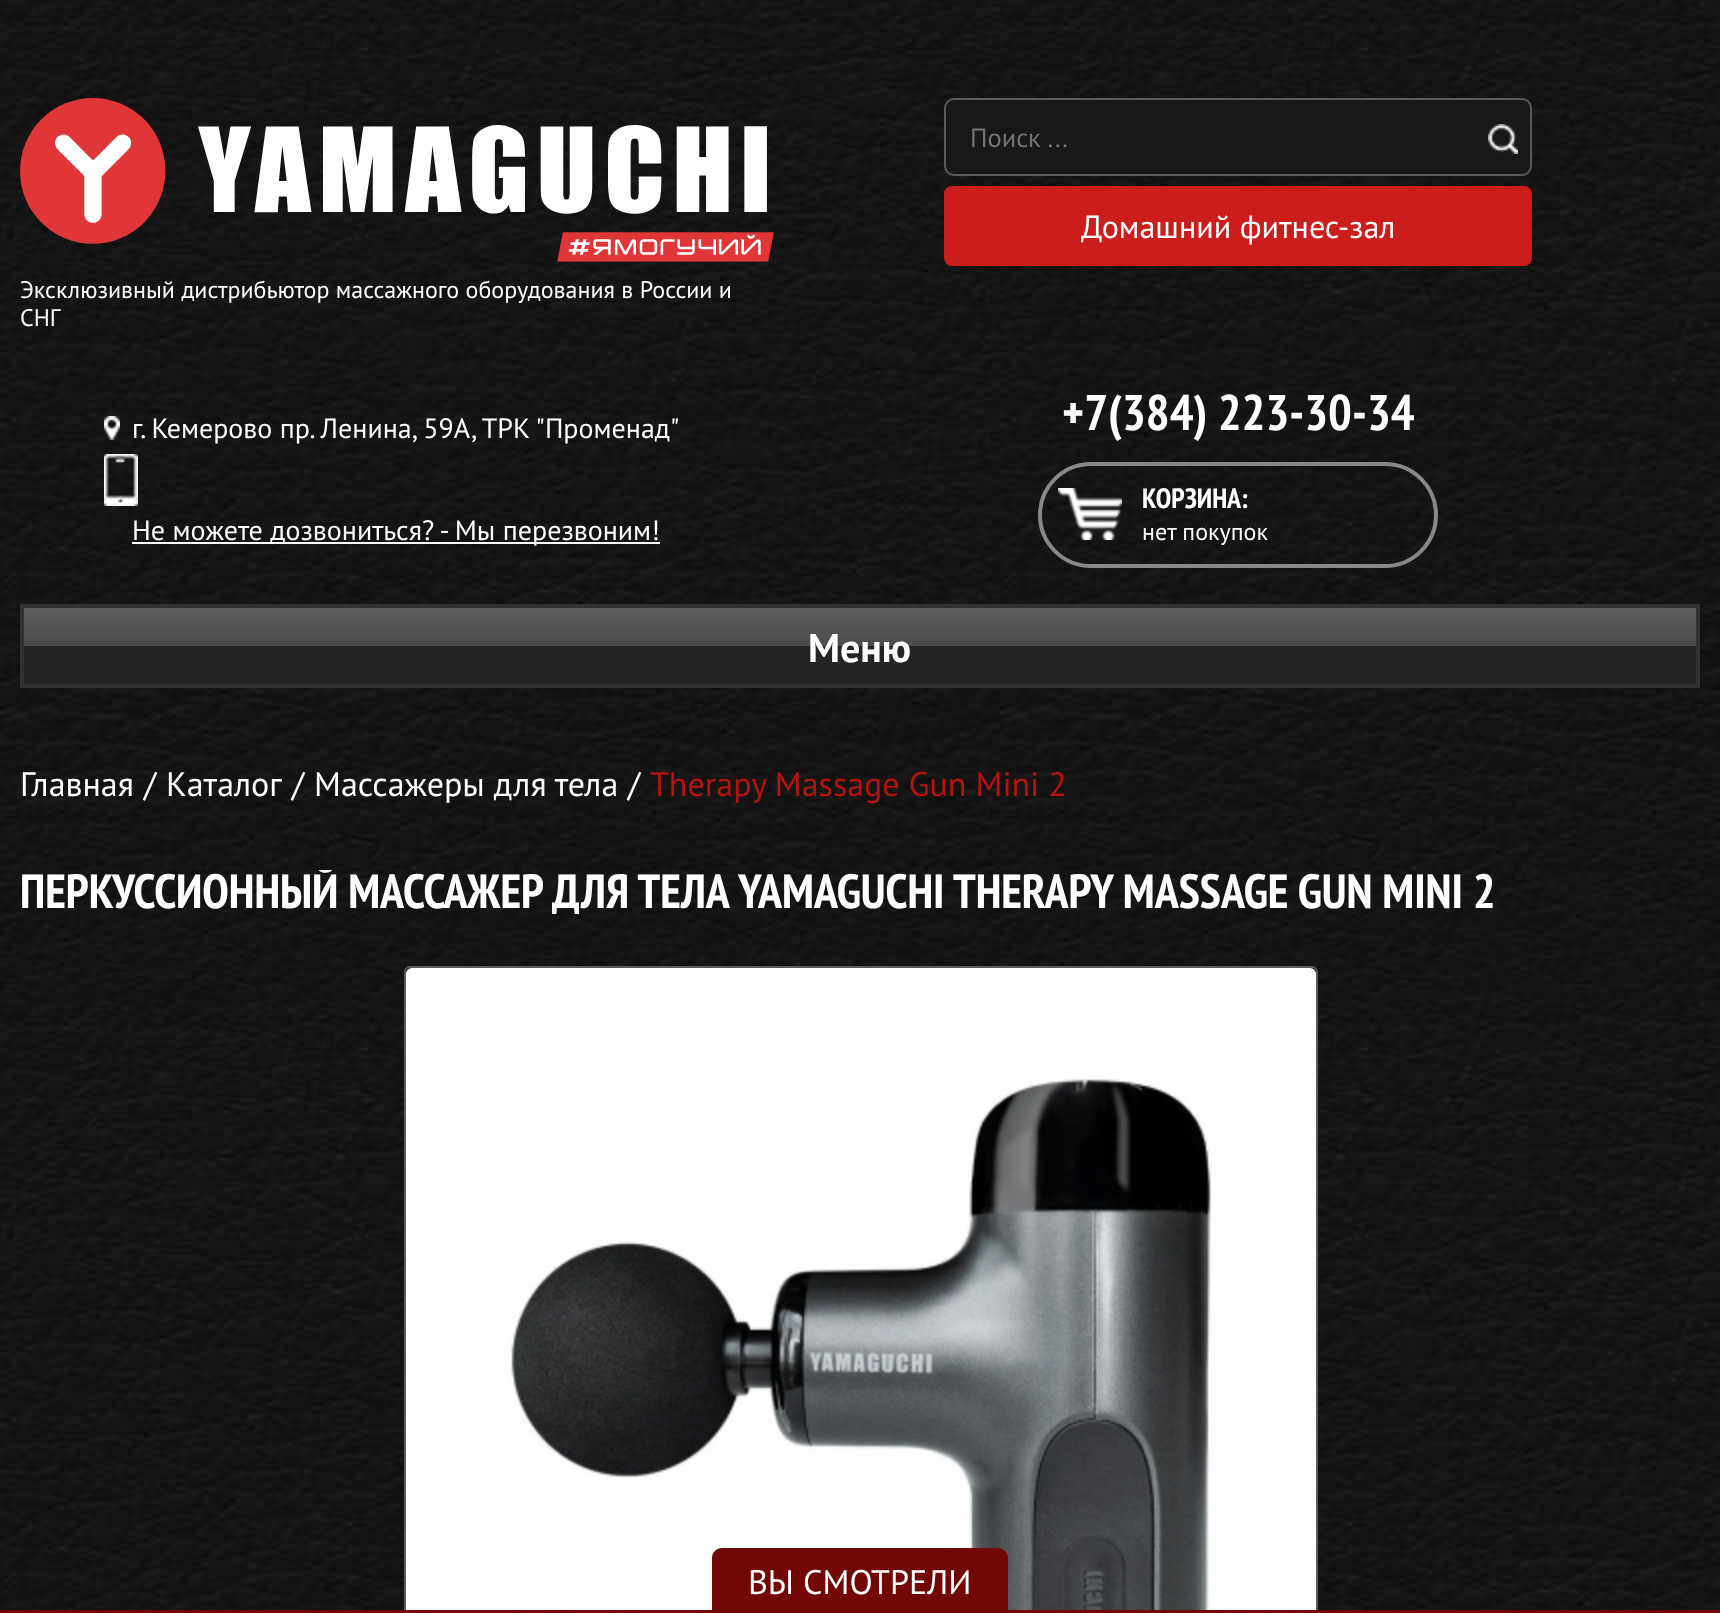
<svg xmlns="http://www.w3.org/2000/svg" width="1720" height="1613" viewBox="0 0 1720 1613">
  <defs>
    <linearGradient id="g1" gradientUnits="userSpaceOnUse" x1="860" y1="608" x2="860" y2="684"><stop offset="0" stop-color="rgb(94,94,94)"/><stop offset="0.5" stop-color="rgb(76,76,76)"/><stop offset="0.5" stop-color="rgb(36,36,36)"/><stop offset="1" stop-color="rgb(36,36,36)"/></linearGradient>
    <clipPath id="clip1"><rect x="0" y="870" width="1720" height="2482"/></clipPath>
  </defs>
  <rect width="100%" height="100%" fill="rgb(255,255,255)"/>
  <image x="0" y="0" width="1720" height="1610" href="pic1.png"/>
  <rect x="945" y="99" width="586" height="76" rx="9" fill="rgb(24,24,24)" stroke="rgb(90,90,90)" stroke-width="2"/>
  <text x="970" y="147" font-family="PT Sans" font-size="26.5" fill="rgb(117,117,117)">Поиск ...</text>
  <image x="1488" y="124" width="30" height="30" href="pic2.png"/>
  <rect x="946" y="188" width="584" height="76" rx="6" fill="rgb(204,29,29)" stroke="rgb(204,29,29)" stroke-width="4"/>
  <text x="1081" y="238" font-family="PT Sans" font-size="32" fill="rgb(255,255,255)">Домашний фитнес-зал</text>
  <image x="20" y="98" width="754" height="164" href="pic3.png"/>
  <g font-family="PT Sans" font-size="24" fill="rgb(255,255,255)">
    <text>
      <tspan x="20" y="298">Эксклюзивный дистрибьютор массажного оборудования в России и</tspan>
      <tspan x="20" y="326">СНГ</tspan>
    </text>
  </g>
  <image x="104" y="416" width="16" height="24" href="pic4.png"/>
  <text x="132" y="438" font-family="PT Sans" font-size="28" fill="rgb(255,255,255)">г. Кемерово пр. Ленина, 59А, ТРК "Променад"</text>
  <image x="104" y="454" width="34" height="52" href="pic5.png"/>
  <rect x="132" y="542" width="528" height="2" fill="rgb(255,255,255)"/>
  <text x="132" y="540" font-family="PT Sans" font-size="28" fill="rgb(255,255,255)">Не можете дозвониться? - Мы перезвоним!</text>
  <text x="1062" y="430" font-family="PT Sans Narrow" font-size="50" font-weight="bold" fill="rgb(255,255,255)">+7(384) 223-30-34</text>
  <rect x="1040" y="464" width="396" height="102" rx="51" fill="none" stroke="rgb(136,136,136)" stroke-width="4"/>
  <image x="1058" y="488" width="64" height="52" href="pic6.png"/>
  <text x="1142" y="508" font-family="PT Sans Narrow" font-size="28" font-weight="bold" fill="rgb(255,255,255)">КОРЗИНА:</text>
  <text x="1142" y="540" font-family="PT Sans" font-size="24" fill="rgb(255,255,255)">нет покупок</text>
  <rect x="24" y="608" width="1672" height="76" fill="url(#g1)"/>
  <rect x="22" y="606" width="1676" height="80" fill="none" stroke="rgb(50,50,50)" stroke-width="4"/>
  <text x="808" y="662" font-family="PT Sans" font-size="40" font-weight="bold" fill="rgb(255,255,255)">Меню</text>
  <g font-family="PT Sans" font-size="34" fill="rgb(255,255,255)">
    <text x="20" y="796">Главная</text>
    <text x="144" y="796">/</text>
    <text x="166" y="796">Каталог</text>
    <text x="292" y="796">/</text>
    <text x="314" y="796">Массажеры для тела</text>
    <text x="628" y="796">/</text>
  </g>
  <text x="650" y="796" font-family="PT Sans" font-size="34" fill="rgb(181,19,15)">Therapy Massage Gun Mini 2</text>
  <g clip-path="url(#clip1)">
    <text x="20" y="908" word-spacing="0.1" font-family="PT Sans Narrow" font-size="48" font-weight="bold" fill="rgb(255,255,255)">ПЕРКУССИОННЫЙ МАССАЖЕР ДЛЯ ТЕЛА YAMAGUCHI THERAPY MASSAGE GUN MINI 2</text>
  </g>
  <rect x="405" y="967" width="912" height="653" rx="5" fill="rgb(24,24,24)" stroke="rgb(90,90,90)" stroke-width="2"/>
  <image x="406" y="968" width="910" height="642" href="pic7.png"/>
  <rect x="0" y="1610" width="1720" height="3" fill="rgb(113,8,5)"/>
  <path d="M722 1548H998C1003.5 1548 1008 1552.5 1008 1558V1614H712V1558C712 1552.5 716.5 1548 722 1548Z" fill="rgb(113,8,5)"/>
  <text x="748" y="1594" font-family="PT Sans" font-size="34" fill="rgb(255,255,255)">ВЫ СМОТРЕЛИ</text>
</svg>
